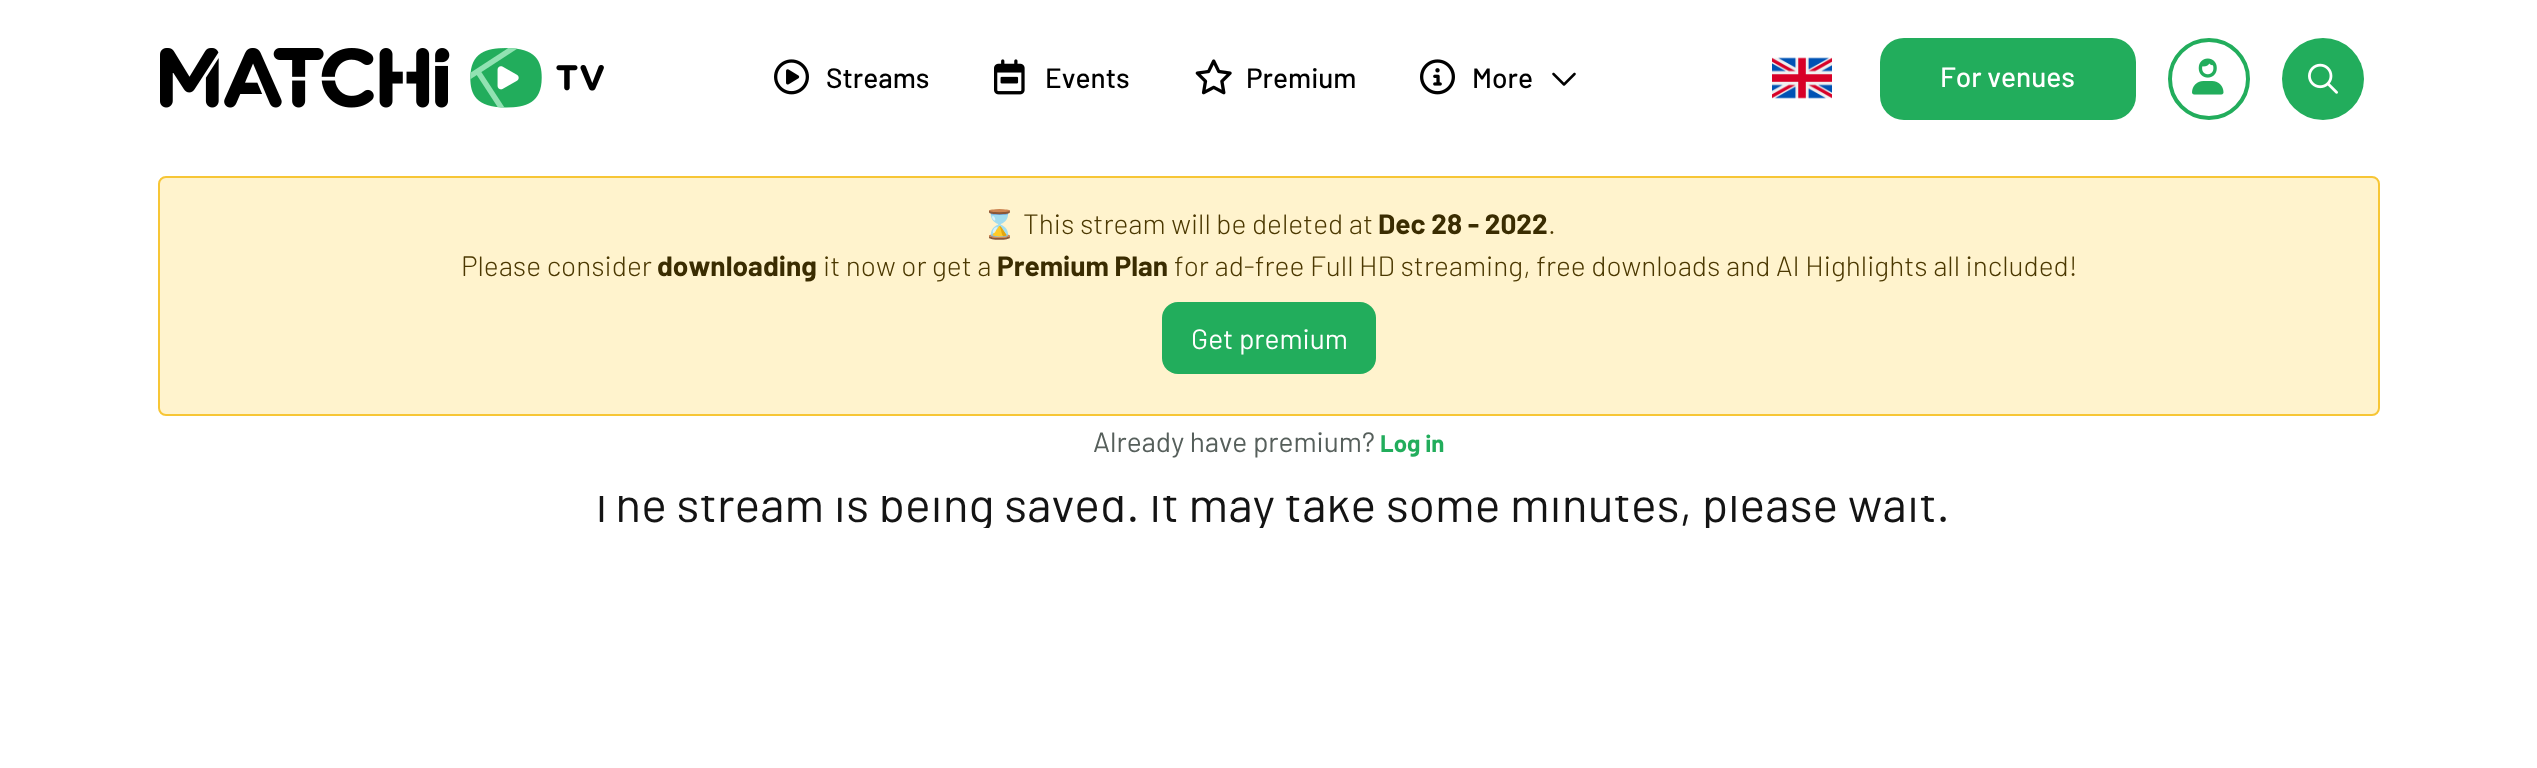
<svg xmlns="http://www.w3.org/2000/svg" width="2537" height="768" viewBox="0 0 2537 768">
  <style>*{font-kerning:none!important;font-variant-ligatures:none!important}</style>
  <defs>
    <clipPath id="clip1"><rect x="160" y="496" width="2220" height="32" rx="16"/></clipPath>
  </defs>
  <rect width="100%" height="100%" fill="rgb(255,255,255)"/>
  <image x="160" y="48" width="444" height="60" href="pic1.png"/>
  <image x="774" y="59" width="35" height="36" href="pic2.png"/>
  <text x="826" y="88" font-family="Barlow" font-size="28" font-weight="500" fill="rgb(0,0,0)">Streams</text>
  <image x="994" y="59" width="31" height="36" href="pic3.png"/>
  <text x="1045" y="88" font-family="Barlow" font-size="28" font-weight="500" fill="rgb(0,0,0)">Events</text>
  <image x="1195" y="59" width="37" height="36" href="pic4.png"/>
  <text x="1246" y="88" font-family="Barlow" font-size="28" font-weight="500" fill="rgb(0,0,0)">Premium</text>
  <image x="1420" y="59" width="35" height="36" href="pic5.png"/>
  <text x="1472" y="88" font-family="Barlow" font-size="28" font-weight="500" fill="rgb(0,0,0)">More</text>
  <image x="1552" y="72" width="24" height="14" href="pic6.png"/>
  <image x="1772" y="57" width="60" height="42" href="pic7.png"/>
  <rect x="1880" y="38" width="256" height="82" rx="24" fill="rgb(34,173,92)"/>
  <text x="1940" y="87" font-family="Barlow" font-size="28" font-weight="500" fill="rgb(255,255,255)">For venues</text>
  <circle cx="2209" cy="79" r="39" fill="none" stroke="rgb(34,173,92)" stroke-width="4"/>
  <image x="2192" y="58" width="32" height="37" href="pic8.png"/>
  <circle cx="2323" cy="79" r="41" fill="rgb(34,173,92)"/>
  <image x="2308" y="63" width="30" height="31" href="pic9.png"/>
  <rect x="159" y="177" width="2220" height="238" rx="7" fill="rgb(255,243,205)" stroke="rgb(247,198,54)" stroke-width="2"/>
  <text x="982" y="234" font-family="Noto Color Emoji" font-size="28" fill="rgb(75,56,1)">⌛</text>
  <text x="1023" y="234" font-family="Barlow" font-size="28" font-weight="300" fill="rgb(75,56,1)">This stream will be deleted at</text>
  <text x="1378" y="234" font-family="Barlow" font-size="28" font-weight="bold" fill="rgb(58,44,1)">Dec 28 - 2022</text>
  <g font-family="Barlow" font-size="28" font-weight="300" fill="rgb(75,56,1)">
    <text x="1548" y="234">.</text>
    <text x="461" y="276">Please consider</text>
  </g>
  <text x="657" y="276" font-family="Barlow" font-size="28" font-weight="bold" fill="rgb(58,44,1)">downloading</text>
  <text x="823" y="276" font-family="Barlow" font-size="28" font-weight="300" fill="rgb(75,56,1)">it now or get a</text>
  <text x="997" y="276" font-family="Barlow" font-size="28" font-weight="bold" fill="rgb(58,44,1)">Premium Plan</text>
  <text x="1174" y="276" font-family="Barlow" font-size="28" font-weight="300" fill="rgb(75,56,1)">for ad-free Full HD streaming, free downloads and AI Highlights all included!</text>
  <rect x="1162" y="302" width="214" height="72" rx="16" fill="rgb(34,173,92)"/>
  <text x="1191" y="349" font-family="Barlow" font-size="28" fill="rgb(255,255,255)">Get premium</text>
  <text x="1093" y="452" font-family="Barlow" font-size="28" fill="rgb(86,95,91)">Already have premium?</text>
  <text x="1380" y="452" font-family="Barlow" font-size="24" font-weight="bold" fill="rgb(34,173,92)">Log in</text>
  <g clip-path="url(#clip1)">
    <text x="588" y="522" font-family="Barlow" font-size="48" fill="rgb(20,20,20)">The stream is being saved. It may take some minutes, please wait.</text>
  </g>
</svg>
